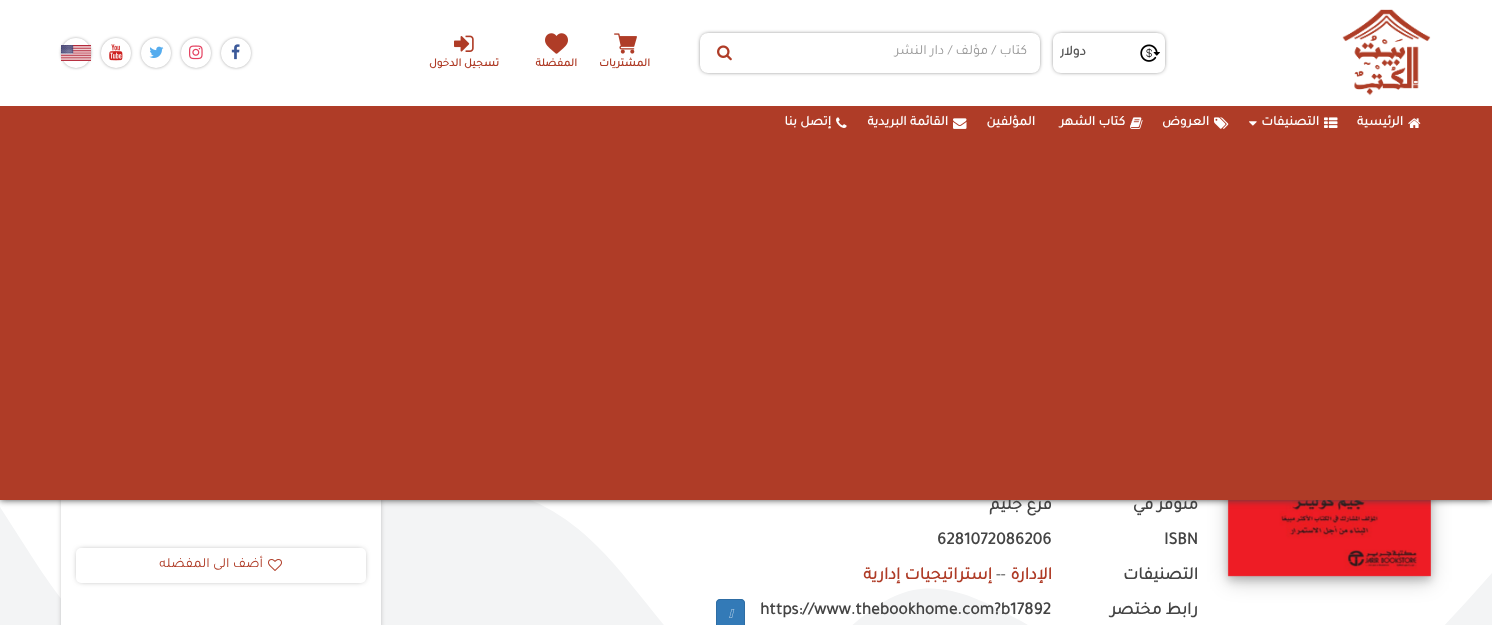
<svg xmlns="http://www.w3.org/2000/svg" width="1492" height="625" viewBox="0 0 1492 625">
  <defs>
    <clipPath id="clip1"><path d="M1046 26H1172V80H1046ZM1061 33H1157C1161.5 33 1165 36.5 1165 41V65C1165 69.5 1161.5 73 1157 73H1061C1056.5 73 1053 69.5 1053 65V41C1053 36.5 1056.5 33 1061 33Z" clip-rule="evenodd"/></clipPath>
    <clipPath id="clip2"><rect x="1060" y="43" width="100" height="20"/></clipPath>
  </defs>
  <rect width="100%" height="100%" fill="rgb(255,255,255)"/>
  <path d="M0 507L25 546C50 585 99 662 149 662C199 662 249 585 298 540C348 496 398 485 448 485C497 485 547 496 597 546C647 595 696 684 746 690C796 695 845 618 895 596C945 573 995 607 1044 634C1094 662 1144 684 1194 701C1243 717 1293 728 1343 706C1393 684 1442 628 1467 601L1492 573V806H0Z" fill="rgb(243,244,245)"/>
  <rect x="1228" y="303" width="203" height="279" fill="rgba(0,0,0,0.19)" filter="blur(10px)"/>
  <rect x="1228" y="301" width="203" height="279" fill="rgba(0,0,0,0.2)" filter="blur(4px)"/>
  <image x="1227" y="500" width="204" height="77" href="pic19.png"/>
  <rect x="64" y="271" width="314" height="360" rx="2" fill="rgb(85,85,85)" filter="blur(3px)"/>
  <rect x="61" y="500" width="320" height="125" fill="rgb(255,255,255)"/>
  <rect x="0" y="0" width="1492" height="500" fill="rgb(68,68,68)" filter="blur(3.5px)"/>
  <rect x="0" y="0" width="1492" height="106" fill="rgb(255,255,255)"/>
  <image x="1342" y="9" width="89" height="87" href="pic1.png"/>
  <image x="1140" y="44" width="20" height="18" href="pic2.png"/>
  <g clip-path="url(#clip1)">
    <rect x="1055" y="35" width="108" height="36" rx="6" fill="rgb(0,0,0)" filter="blur(2.5px)"/>
  </g>
  <g clip-path="url(#clip2)">
    <text x="1086" y="55" font-family="Tajawal" font-size="14" font-weight="bold" direction="rtl" fill="rgb(85,85,85)">دولار</text>
  </g>
  <rect x="702" y="35" width="336" height="36" rx="6" fill="rgb(0,0,0)" filter="blur(2.5px)"/>
  <rect x="700" y="33" width="340" height="40" rx="8" fill="rgb(255,255,255)"/>
  <text x="1027" y="54" font-family="Tajawal" font-size="14" direction="rtl" fill="rgb(153,153,153)">كتاب / مؤلف / دار النشر</text>
  <image x="717" y="45" width="15" height="16" href="pic3.png"/>
  <image x="614" y="33" width="23" height="21" href="pic4.png"/>
  <text x="650" y="66" font-family="Tajawal" font-size="11.5" font-weight="bold" direction="rtl" fill="rgb(175,60,39)">المشتريات</text>
  <image x="545" y="33" width="23" height="21" href="pic5.png"/>
  <text x="577" y="66" font-family="Tajawal" font-size="11.5" font-weight="bold" direction="rtl" fill="rgb(175,60,39)">المفضلة</text>
  <image x="454" y="35" width="20" height="17" href="pic6.png"/>
  <text x="499" y="66" font-family="Tajawal" font-size="11.5" font-weight="bold" direction="rtl" fill="rgb(175,60,39)">تسجيل الدخول</text>
  <rect x="223" y="40" width="26" height="26" rx="13" fill="rgb(0,0,0)" filter="blur(2px)"/>
  <circle cx="236" cy="53" r="15" fill="rgb(255,255,255)"/>
  <image x="231" y="44" width="9" height="16" href="pic7.png"/>
  <rect x="183" y="40" width="26" height="26" rx="13" fill="rgb(0,0,0)" filter="blur(2px)"/>
  <circle cx="196" cy="53" r="15" fill="rgb(255,255,255)"/>
  <image x="189" y="45" width="14" height="15" href="pic8.png"/>
  <rect x="143" y="40" width="26" height="26" rx="13" fill="rgb(0,0,0)" filter="blur(2px)"/>
  <circle cx="156" cy="53" r="15" fill="rgb(255,255,255)"/>
  <image x="149" y="46" width="15" height="12" href="pic9.png"/>
  <rect x="103" y="40" width="26" height="26" rx="13" fill="rgb(0,0,0)" filter="blur(2px)"/>
  <circle cx="116" cy="53" r="15" fill="rgb(255,255,255)"/>
  <image x="109" y="44" width="14" height="17" href="pic10.png"/>
  <rect x="63" y="40" width="26" height="26" rx="13" fill="rgb(0,0,0)" filter="blur(2px)"/>
  <circle cx="76" cy="53" r="15" fill="rgb(255,255,255)"/>
  <image x="61" y="45" width="30" height="16" href="pic11.png"/>
  <g font-family="Tajawal" font-size="17.5" font-weight="bold" direction="rtl" fill="rgb(68,68,68)">
    <text x="1198" y="509">متوفر في</text>
    <text x="1052" y="509">فرع جليم</text>
  </g>
  <rect x="0" y="106" width="1492" height="394" fill="rgb(175,60,39)"/>
  <image x="1408" y="118" width="13" height="10" href="pic12.png"/>
  <text x="1403" y="125" font-family="Tajawal" font-size="13.5" font-weight="bold" direction="rtl" fill="rgb(255,255,255)">الرئيسية</text>
  <image x="1324" y="117" width="14" height="11" href="pic13.png"/>
  <text x="1319" y="125" font-family="Tajawal" font-size="13.5" font-weight="bold" direction="rtl" fill="rgb(255,255,255)">التصنيفات</text>
  <image x="1249" y="121" width="8" height="5" href="pic14.png"/>
  <image x="1214" y="117" width="15" height="12" href="pic15.png"/>
  <text x="1209" y="125" font-family="Tajawal" font-size="13.5" font-weight="bold" direction="rtl" fill="rgb(255,255,255)">العروض</text>
  <image x="1130" y="117" width="13" height="12" href="pic16.png"/>
  <g font-family="Tajawal" font-size="13.5" font-weight="bold" direction="rtl" fill="rgb(255,255,255)">
    <text x="1125" y="125">كتاب الشهر</text>
    <text x="1035" y="125">المؤلفين</text>
  </g>
  <image x="953" y="118" width="14" height="11" href="pic17.png"/>
  <text x="948" y="125" font-family="Tajawal" font-size="13.5" font-weight="bold" direction="rtl" fill="rgb(255,255,255)">القائمة البريدية</text>
  <image x="836" y="117" width="11" height="11" href="pic18.png"/>
  <text x="831" y="125" font-family="Tajawal" font-size="13.5" font-weight="bold" direction="rtl" fill="rgb(255,255,255)">إتصل بنا</text>
  <g font-family="Tajawal" font-size="17.5" font-weight="bold" fill="rgb(68,68,68)">
    <text x="1164" y="544">ISBN</text>
    <text x="937" y="544">6281072086206</text>
  </g>
  <text x="1198" y="579" font-family="Tajawal" font-size="17.5" font-weight="bold" direction="rtl" fill="rgb(68,68,68)">التصنيفات</text>
  <text x="1052" y="579" font-family="Tajawal" font-size="17.5" font-weight="bold" direction="rtl" fill="rgb(175,60,39)">الإدارة</text>
  <text x="996" y="579" font-family="Tajawal" font-size="17.5" fill="rgb(68,68,68)">--</text>
  <text x="992" y="579" font-family="Tajawal" font-size="17.5" font-weight="bold" direction="rtl" fill="rgb(175,60,39)">إستراتيجيات إدارية</text>
  <text x="1198" y="614" font-family="Tajawal" font-size="17.5" font-weight="bold" direction="rtl" fill="rgb(68,68,68)">رابط مختصر</text>
  <text x="760" y="614" font-family="Tajawal" font-size="17.5" font-weight="bold" fill="rgb(68,68,68)">https://www.thebookhome.com?b17892</text>
  <path d="M720 599H741C743 599 745 601 745 603V625H716V603C716 601 718 599 720 599Z" fill="rgb(51,122,183)"/>
  <rect x="716.5" y="599.5" width="28" height="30" rx="3.5" fill="none" stroke="rgb(46,109,164)"/>
  <image x="729" y="609" width="6" height="9" href="pic20.png"/>
  <rect x="79" y="551" width="284" height="29" rx="2" fill="rgb(85,85,85)" filter="blur(3px)"/>
  <rect x="76" y="548" width="290" height="35" rx="5" fill="rgb(255,255,255)"/>
  <image x="268" y="559" width="14" height="12" href="pic21.png"/>
  <text x="263" y="567" font-family="Tajawal" font-size="14" direction="rtl" fill="rgb(175,60,39)">أضف الى المفضله</text>
</svg>
